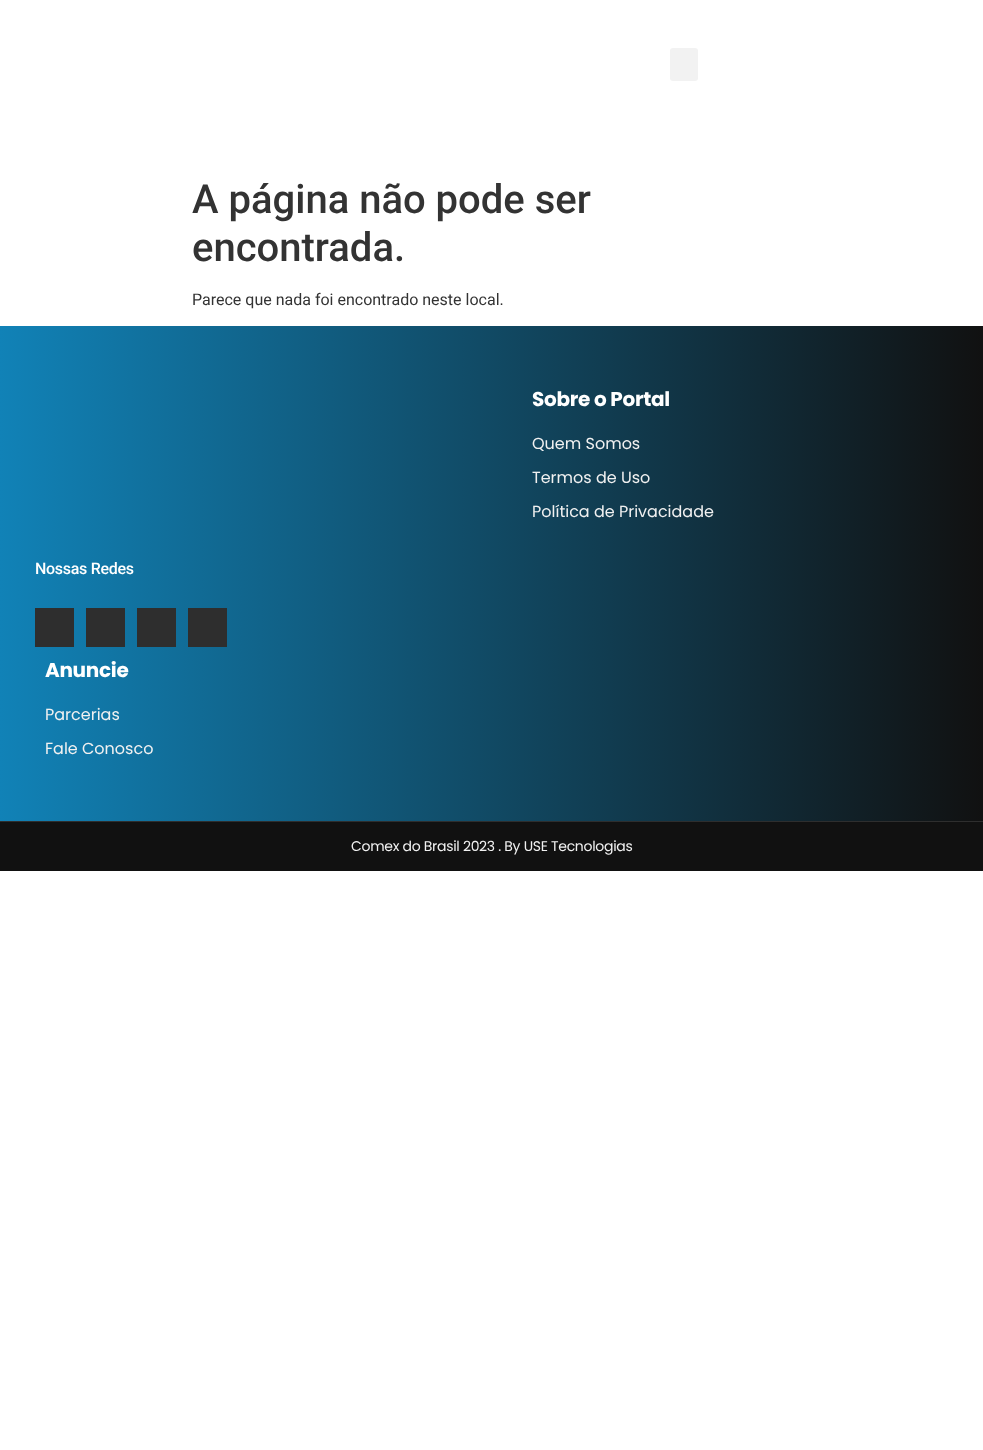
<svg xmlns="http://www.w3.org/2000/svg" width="983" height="1450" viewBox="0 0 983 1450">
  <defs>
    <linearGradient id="g1" gradientUnits="userSpaceOnUse" x1="0" y1="574" x2="983" y2="574"><stop offset="0" stop-color="rgb(17,130,183)"/><stop offset="1" stop-color="rgb(17,17,17)"/></linearGradient>
  </defs>
  <rect width="100%" height="100%" fill="rgb(255,255,255)"/>
  <rect x="670" y="48" width="28" height="33" rx="3" fill="rgb(242,242,242)"/>
  <g font-family="Roboto" font-size="40" font-weight="500" fill="rgb(51,51,51)">
    <text>
      <tspan x="192" y="213">A página não pode ser</tspan>
      <tspan x="192" y="261">encontrada.</tspan>
    </text>
  </g>
  <text x="192" y="305" font-family="Roboto" font-size="16" fill="rgb(51,51,51)">Parece que nada foi encontrado neste local.</text>
  <rect x="0" y="326" width="983" height="495" fill="url(#g1)"/>
  <text x="532" y="406" font-family="Poppins" font-size="20" font-weight="bold" letter-spacing="-0.3" fill="rgb(255,255,255)">Sobre o Portal</text>
  <g font-family="Poppins" font-size="16" fill="rgb(241,241,241)">
    <text x="532" y="449">Quem Somos</text>
    <text x="532" y="483">Termos de Uso</text>
    <text x="532" y="517">Política de Privacidade</text>
  </g>
  <text x="35" y="574" font-family="Roboto" font-size="16" font-weight="500" letter-spacing="-0.3" fill="rgb(255,255,255)">Nossas Redes</text>
  <rect x="35" y="608" width="39" height="39" fill="rgb(46,46,46)"/>
  <rect x="86" y="608" width="39" height="39" fill="rgb(46,46,46)"/>
  <rect x="137" y="608" width="39" height="39" fill="rgb(46,46,46)"/>
  <rect x="188" y="608" width="39" height="39" fill="rgb(46,46,46)"/>
  <text x="45" y="677" font-family="Poppins" font-size="20" font-weight="bold" letter-spacing="-0.3" fill="rgb(255,255,255)">Anuncie</text>
  <g font-family="Poppins" font-size="16" fill="rgb(241,241,241)">
    <text x="45" y="720">Parcerias</text>
    <text x="45" y="754">Fale Conosco</text>
  </g>
  <rect x="0" y="822" width="983" height="49" fill="rgb(17,17,17)"/>
  <rect x="0" y="821" width="983" height="1" fill="rgb(46,46,46)"/>
  <text x="351" y="851" font-family="Poppins" font-size="14" letter-spacing="-0.3" fill="rgb(241,241,241)">Comex do Brasil 2023 . By USE Tecnologias</text>
</svg>
